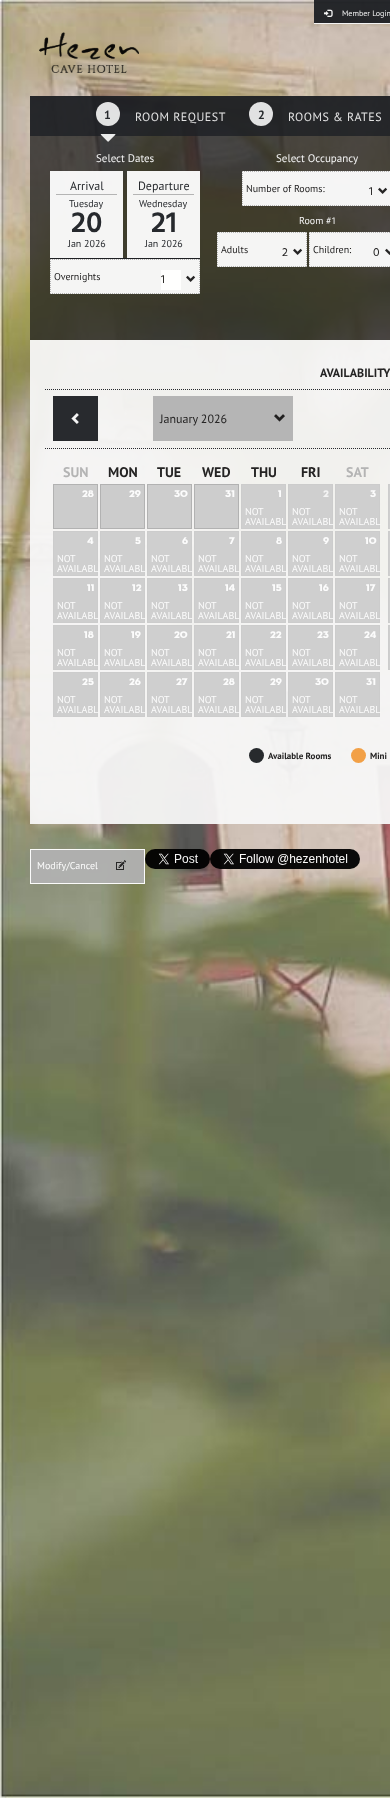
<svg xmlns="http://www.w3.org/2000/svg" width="390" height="1798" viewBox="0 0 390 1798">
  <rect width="100%" height="100%" fill="rgb(255,255,255)"/>
  <image x="0" y="0" width="390" height="1798" href="pic1.png"/>
  <rect x="314" y="0" width="76" height="23" fill="rgba(28,31,35,0.95)"/>
  <rect x="314" y="23" width="76" height="1" fill="rgb(244,244,244)"/>
  <image x="324" y="9" width="9" height="8" href="pic2.png"/>
  <text x="342" y="16" font-family="PT Sans" font-size="8" fill="rgb(244,244,244)">Member Login</text>
  <image x="39" y="32" width="100" height="41" href="pic3.png"/>
  <rect x="30" y="96" width="360" height="40" fill="rgba(28,31,35,0.95)"/>
  <circle cx="108" cy="114" r="12" fill="rgba(236,236,236,0.95)"/>
  <text x="104" y="119" font-family="PT Sans" font-size="12" font-weight="bold" fill="rgb(38,41,45)">1</text>
  <text x="135" y="121" font-family="PT Sans" font-size="12" letter-spacing="0.5" fill="rgb(226,226,226)">ROOM REQUEST</text>
  <rect x="30" y="136" width="360" height="204" fill="rgba(30,30,30,0.75)"/>
  <image x="100" y="134" width="16" height="8" href="pic4.png"/>
  <circle cx="261" cy="114" r="12" fill="rgba(236,236,236,0.95)"/>
  <text x="258" y="119" font-family="PT Sans" font-size="12" font-weight="bold" fill="rgb(38,41,45)">2</text>
  <text x="288" y="121" font-family="PT Sans" font-size="12" letter-spacing="0.5" fill="rgb(226,226,226)">ROOMS &amp; RATES</text>
  <text x="96" y="162" font-family="PT Sans" font-size="11" fill="rgb(244,244,244)">Select Dates</text>
  <rect x="50" y="171" width="73" height="87" fill="rgba(255,255,255,0.95)"/>
  <text x="70" y="190" font-family="PT Sans" font-size="12" fill="rgb(38,41,45)">Arrival</text>
  <rect x="56" y="194" width="61" height="1" fill="rgb(180,180,180)"/>
  <text x="69" y="207" font-family="PT Sans" font-size="10" fill="rgb(38,41,45)">Tuesday</text>
  <text x="71" y="232" font-family="Hind" font-size="30" font-weight="600" fill="rgb(38,41,45)">20</text>
  <text x="68" y="247" font-family="PT Sans" font-size="10" fill="rgb(38,41,45)">Jan 2026</text>
  <rect x="127" y="171" width="73" height="87" fill="rgba(255,255,255,0.95)"/>
  <text x="138" y="190" font-family="PT Sans" font-size="12" fill="rgb(38,41,45)">Departure</text>
  <rect x="133" y="194" width="61" height="1" fill="rgb(180,180,180)"/>
  <text x="139" y="207" font-family="PT Sans" font-size="10" fill="rgb(38,41,45)">Wednesday</text>
  <text x="151" y="232" font-family="Hind" font-size="30" font-weight="600" fill="rgb(38,41,45)">21</text>
  <text x="145" y="247" font-family="PT Sans" font-size="10" fill="rgb(38,41,45)">Jan 2026</text>
  <rect x="50" y="258" width="150" height="1" fill="rgba(28,31,35,0.95)"/>
  <rect x="50" y="259" width="150" height="35" fill="rgba(255,255,255,0.95)"/>
  <path d="M50 259.5H200" fill="none" stroke="rgb(180,180,180)" stroke-dasharray="1 1"/>
  <path d="M199.5 259V294" fill="none" stroke="rgb(180,180,180)" stroke-dasharray="1 1"/>
  <path d="M50 293.5H200" fill="none" stroke="rgb(180,180,180)" stroke-dasharray="1 1"/>
  <path d="M50.5 259V294" fill="none" stroke="rgba(177,177,177,0.95)" stroke-dasharray="1 1"/>
  <text x="54" y="280" font-family="PT Sans" font-size="10" fill="rgb(36,35,35)">Overnights</text>
  <rect x="161" y="270" width="20" height="20" fill="rgb(255,255,254)"/>
  <text x="161" y="283" font-family="Hind" font-size="12" fill="rgb(32,30,27)">1</text>
  <image x="186" y="275" width="10" height="7" href="pic5.png"/>
  <text x="276" y="162" font-family="PT Sans" font-size="11" fill="rgb(244,244,244)">Select Occupancy</text>
  <rect x="242" y="171" width="148" height="35" fill="rgba(255,255,255,0.95)"/>
  <path d="M242 171.5H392" fill="none" stroke="rgb(180,180,180)" stroke-dasharray="1 1"/>
  <path d="M242 205.5H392" fill="none" stroke="rgb(180,180,180)" stroke-dasharray="1 1"/>
  <path d="M242.5 171V206" fill="none" stroke="rgba(177,177,177,0.95)" stroke-dasharray="1 1"/>
  <text x="246" y="192" font-family="PT Sans" font-size="10" fill="rgb(36,35,35)">Number of Rooms:</text>
  <text x="369" y="195" font-family="Hind" font-size="12" fill="rgb(36,35,35)">1</text>
  <image x="378" y="187" width="10" height="7" href="pic6.png"/>
  <text x="299" y="224" font-family="PT Sans" font-size="10" fill="rgb(244,244,244)">Room #</text>
  <text x="332" y="224" font-family="Hind" font-size="10" fill="rgb(244,244,244)">1</text>
  <rect x="217" y="232" width="90" height="35" fill="rgba(255,255,255,0.95)"/>
  <path d="M217 232.5H307" fill="none" stroke="rgb(180,180,180)" stroke-dasharray="1 1"/>
  <path d="M306.5 232V267" fill="none" stroke="rgb(180,180,180)" stroke-dasharray="1 1"/>
  <path d="M217 266.5H307" fill="none" stroke="rgb(180,180,180)" stroke-dasharray="1 1"/>
  <path d="M217.5 232V267" fill="none" stroke="rgba(177,177,177,0.95)" stroke-dasharray="1 1"/>
  <text x="221" y="253" font-family="PT Sans" font-size="10" fill="rgb(36,35,35)">Adults</text>
  <text x="282" y="256" font-family="Hind" font-size="12" fill="rgb(36,35,35)">2</text>
  <image x="293" y="248" width="10" height="7" href="pic7.png"/>
  <rect x="309" y="232" width="81" height="35" fill="rgba(255,255,255,0.95)"/>
  <path d="M309 232.5H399" fill="none" stroke="rgb(180,180,180)" stroke-dasharray="1 1"/>
  <path d="M309 266.5H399" fill="none" stroke="rgb(180,180,180)" stroke-dasharray="1 1"/>
  <path d="M309.5 232V267" fill="none" stroke="rgba(177,177,177,0.95)" stroke-dasharray="1 1"/>
  <text x="313" y="253" font-family="PT Sans" font-size="10" fill="rgb(36,35,35)">Children:</text>
  <text x="373" y="256" font-family="Hind" font-size="12" fill="rgb(36,35,35)">0</text>
  <image x="385" y="248" width="5" height="7" href="pic8.png"/>
  <rect x="30" y="340" width="360" height="484" fill="rgba(247,247,247,0.95)"/>
  <text x="320" y="377" font-family="PT Sans" font-size="12" font-weight="bold" fill="rgb(36,35,35)">AVAILABILITY</text>
  <path d="M45 389.5H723" fill="none" stroke="rgba(28,31,35,0.95)" stroke-dasharray="1 1"/>
  <path d="M45 448.5H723" fill="none" stroke="rgba(28,31,35,0.95)" stroke-dasharray="1 1"/>
  <rect x="53" y="396" width="45" height="45" fill="rgba(28,31,35,0.95)"/>
  <image x="71" y="413" width="8" height="11" href="pic9.png"/>
  <rect x="153" y="396" width="140" height="45" fill="rgba(177,177,177,0.95)"/>
  <text x="160" y="423" font-family="PT Sans" font-size="12" fill="rgb(36,35,35)">January 2026</text>
  <image x="274" y="414" width="11" height="8" href="pic10.png"/>
  <text x="63" y="477" font-family="PT Sans" font-size="14" font-weight="bold" fill="rgb(180,180,180)">SUN</text>
  <g font-family="PT Sans" font-size="14" font-weight="bold" fill="rgb(36,35,35)">
    <text x="108" y="477">MON</text>
    <text x="157" y="477">TUE</text>
    <text x="202" y="477">WED</text>
    <text x="251" y="477">THU</text>
    <text x="301" y="477">FRI</text>
  </g>
  <text x="346" y="477" font-family="PT Sans" font-size="14" font-weight="bold" fill="rgb(180,180,180)">SAT</text>
  <rect x="53.5" y="484.5" width="44" height="44" fill="rgb(204,204,204)" stroke="rgb(178,178,178)"/>
  <text x="82" y="497" font-family="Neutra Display" font-size="10" fill="rgb(252,252,252)">28</text>
  <rect x="100.5" y="484.5" width="44" height="44" fill="rgb(204,204,204)" stroke="rgb(178,178,178)"/>
  <text x="129" y="497" font-family="Neutra Display" font-size="10" fill="rgb(252,252,252)">29</text>
  <rect x="147.5" y="484.5" width="44" height="44" fill="rgba(202,202,202,0.95)" stroke="rgb(178,178,178)"/>
  <text x="174" y="497" font-family="Neutra Display" font-size="10" fill="rgb(252,252,252)">30</text>
  <rect x="194.5" y="484.5" width="44" height="44" fill="rgba(202,202,202,0.95)" stroke="rgb(178,178,178)"/>
  <text x="225" y="497" font-family="Neutra Display" font-size="10" fill="rgb(252,252,252)">31</text>
  <rect x="241.5" y="484.5" width="44" height="44" fill="rgba(204,204,204,0.95)" stroke="rgb(204,204,204)"/>
  <text x="278" y="497" font-family="Neutra Display" font-size="10" fill="rgb(252,252,252)">1</text>
  <g font-family="PT Sans" font-size="10" fill="rgb(252,252,252)">
    <text>
      <tspan x="245" y="515">NOT</tspan>
      <tspan x="245" y="525">AVAILABL</tspan>
    </text>
  </g>
  <rect x="288.5" y="484.5" width="44" height="44" fill="rgba(204,204,204,0.95)" stroke="rgb(204,204,204)"/>
  <text x="323" y="497" font-family="Neutra Display" font-size="10" fill="rgb(244,244,244)">2</text>
  <g font-family="PT Sans" font-size="10" fill="rgb(252,252,252)">
    <text>
      <tspan x="292" y="515">NOT</tspan>
      <tspan x="292" y="525">AVAILABL</tspan>
    </text>
  </g>
  <rect x="335.5" y="484.5" width="44" height="44" fill="rgba(204,204,204,0.95)" stroke="rgb(204,204,204)"/>
  <text x="370" y="497" font-family="Neutra Display" font-size="10" fill="rgb(252,252,252)">3</text>
  <g font-family="PT Sans" font-size="10" fill="rgb(252,252,252)">
    <text>
      <tspan x="339" y="515">NOT</tspan>
      <tspan x="339" y="525">AVAILABL</tspan>
    </text>
  </g>
  <rect x="53.5" y="531.5" width="44" height="44" fill="rgba(204,204,204,0.95)" stroke="rgb(204,204,204)"/>
  <text x="87" y="544" font-family="Neutra Display" font-size="10" fill="rgb(252,252,252)">4</text>
  <g font-family="PT Sans" font-size="10" fill="rgb(252,252,252)">
    <text>
      <tspan x="57" y="562">NOT</tspan>
      <tspan x="57" y="572">AVAILABL</tspan>
    </text>
  </g>
  <rect x="100.5" y="531.5" width="44" height="44" fill="rgba(204,204,204,0.95)" stroke="rgb(204,204,204)"/>
  <text x="135" y="544" font-family="Neutra Display" font-size="10" fill="rgb(252,252,252)">5</text>
  <g font-family="PT Sans" font-size="10" fill="rgb(252,252,252)">
    <text>
      <tspan x="104" y="562">NOT</tspan>
      <tspan x="104" y="572">AVAILABL</tspan>
    </text>
  </g>
  <rect x="147.5" y="531.5" width="44" height="44" fill="rgba(204,204,204,0.95)" stroke="rgb(204,204,204)"/>
  <text x="182" y="544" font-family="Neutra Display" font-size="10" fill="rgb(252,252,252)">6</text>
  <g font-family="PT Sans" font-size="10" fill="rgb(252,252,252)">
    <text>
      <tspan x="151" y="562">NOT</tspan>
      <tspan x="151" y="572">AVAILABL</tspan>
    </text>
  </g>
  <rect x="194.5" y="531.5" width="44" height="44" fill="rgba(204,204,204,0.95)" stroke="rgb(204,204,204)"/>
  <text x="229" y="544" font-family="Neutra Display" font-size="10" fill="rgb(252,252,252)">7</text>
  <g font-family="PT Sans" font-size="10" fill="rgb(252,252,252)">
    <text>
      <tspan x="198" y="562">NOT</tspan>
      <tspan x="198" y="572">AVAILABL</tspan>
    </text>
  </g>
  <rect x="241.5" y="531.5" width="44" height="44" fill="rgba(204,204,204,0.95)" stroke="rgb(204,204,204)"/>
  <text x="276" y="544" font-family="Neutra Display" font-size="10" fill="rgb(252,252,252)">8</text>
  <g font-family="PT Sans" font-size="10" fill="rgb(252,252,252)">
    <text>
      <tspan x="245" y="562">NOT</tspan>
      <tspan x="245" y="572">AVAILABL</tspan>
    </text>
  </g>
  <rect x="288.5" y="531.5" width="44" height="44" fill="rgba(204,204,204,0.95)" stroke="rgb(204,204,204)"/>
  <text x="323" y="544" font-family="Neutra Display" font-size="10" fill="rgb(252,252,252)">9</text>
  <g font-family="PT Sans" font-size="10" fill="rgb(252,252,252)">
    <text>
      <tspan x="292" y="562">NOT</tspan>
      <tspan x="292" y="572">AVAILABL</tspan>
    </text>
  </g>
  <rect x="335.5" y="531.5" width="44" height="44" fill="rgba(204,204,204,0.95)" stroke="rgb(204,204,204)"/>
  <text x="365" y="544" font-family="Neutra Display" font-size="10" fill="rgb(252,252,252)">10</text>
  <g font-family="PT Sans" font-size="10" fill="rgb(252,252,252)">
    <text>
      <tspan x="339" y="562">NOT</tspan>
      <tspan x="339" y="572">AVAILABL</tspan>
    </text>
  </g>
  <rect x="53.5" y="578.5" width="44" height="44" fill="rgb(206,206,206)" stroke="rgb(204,204,204)"/>
  <text x="87" y="591" font-family="Neutra Display" font-size="10" fill="rgb(252,252,252)">11</text>
  <g font-family="PT Sans" font-size="10" fill="rgb(252,252,252)">
    <text>
      <tspan x="57" y="609">NOT</tspan>
      <tspan x="57" y="619">AVAILABL</tspan>
    </text>
  </g>
  <rect x="100.5" y="578.5" width="44" height="44" fill="rgba(204,204,204,0.95)" stroke="rgb(204,204,204)"/>
  <text x="132" y="591" font-family="Neutra Display" font-size="10" fill="rgb(252,252,252)">12</text>
  <g font-family="PT Sans" font-size="10" fill="rgb(252,252,252)">
    <text>
      <tspan x="104" y="609">NOT</tspan>
      <tspan x="104" y="619">AVAILABL</tspan>
    </text>
  </g>
  <rect x="147.5" y="578.5" width="44" height="44" fill="rgba(204,204,204,0.95)" stroke="rgb(204,204,204)"/>
  <text x="178" y="591" font-family="Neutra Display" font-size="10" fill="rgb(252,252,252)">13</text>
  <g font-family="PT Sans" font-size="10" fill="rgb(252,252,252)">
    <text>
      <tspan x="151" y="609">NOT</tspan>
      <tspan x="151" y="619">AVAILABL</tspan>
    </text>
  </g>
  <rect x="194.5" y="578.5" width="44" height="44" fill="rgba(204,204,204,0.95)" stroke="rgb(204,204,204)"/>
  <text x="225" y="591" font-family="Neutra Display" font-size="10" fill="rgb(252,252,252)">14</text>
  <g font-family="PT Sans" font-size="10" fill="rgb(252,252,252)">
    <text>
      <tspan x="198" y="609">NOT</tspan>
      <tspan x="198" y="619">AVAILABL</tspan>
    </text>
  </g>
  <rect x="241.5" y="578.5" width="44" height="44" fill="rgba(204,204,204,0.95)" stroke="rgb(204,204,204)"/>
  <text x="272" y="591" font-family="Neutra Display" font-size="10" fill="rgb(252,252,252)">15</text>
  <g font-family="PT Sans" font-size="10" fill="rgb(252,252,252)">
    <text>
      <tspan x="245" y="609">NOT</tspan>
      <tspan x="245" y="619">AVAILABL</tspan>
    </text>
  </g>
  <rect x="288.5" y="578.5" width="44" height="44" fill="rgba(204,204,204,0.95)" stroke="rgb(204,204,204)"/>
  <text x="319" y="591" font-family="Neutra Display" font-size="10" fill="rgb(252,252,252)">16</text>
  <g font-family="PT Sans" font-size="10" fill="rgb(252,252,252)">
    <text>
      <tspan x="292" y="609">NOT</tspan>
      <tspan x="292" y="619">AVAILABL</tspan>
    </text>
  </g>
  <rect x="335.5" y="578.5" width="44" height="44" fill="rgba(204,204,204,0.95)" stroke="rgb(204,204,204)"/>
  <text x="366" y="591" font-family="Neutra Display" font-size="10" fill="rgb(252,252,252)">17</text>
  <g font-family="PT Sans" font-size="10" fill="rgb(252,252,252)">
    <text>
      <tspan x="339" y="609">NOT</tspan>
      <tspan x="339" y="619">AVAILABL</tspan>
    </text>
  </g>
  <rect x="53.5" y="625.5" width="44" height="44" fill="rgb(206,206,206)" stroke="rgb(204,204,204)"/>
  <text x="84" y="638" font-family="Neutra Display" font-size="10" fill="rgb(252,252,252)">18</text>
  <g font-family="PT Sans" font-size="10" fill="rgb(252,252,252)">
    <text>
      <tspan x="57" y="656">NOT</tspan>
      <tspan x="57" y="666">AVAILABL</tspan>
    </text>
  </g>
  <rect x="100.5" y="625.5" width="44" height="44" fill="rgba(204,204,204,0.95)" stroke="rgb(204,204,204)"/>
  <text x="131" y="638" font-family="Neutra Display" font-size="10" fill="rgb(252,252,252)">19</text>
  <g font-family="PT Sans" font-size="10" fill="rgb(252,252,252)">
    <text>
      <tspan x="104" y="656">NOT</tspan>
      <tspan x="104" y="666">AVAILABL</tspan>
    </text>
  </g>
  <rect x="147.5" y="625.5" width="44" height="44" fill="rgba(204,204,204,0.95)" stroke="rgb(204,204,204)"/>
  <text x="174" y="638" font-family="Neutra Display" font-size="10" fill="rgb(252,252,252)">20</text>
  <g font-family="PT Sans" font-size="10" fill="rgb(252,252,252)">
    <text>
      <tspan x="151" y="656">NOT</tspan>
      <tspan x="151" y="666">AVAILABL</tspan>
    </text>
  </g>
  <rect x="194.5" y="625.5" width="44" height="44" fill="rgba(204,204,204,0.95)" stroke="rgb(204,204,204)"/>
  <text x="226" y="638" font-family="Neutra Display" font-size="10" fill="rgb(252,252,252)">21</text>
  <g font-family="PT Sans" font-size="10" fill="rgb(252,252,252)">
    <text>
      <tspan x="198" y="656">NOT</tspan>
      <tspan x="198" y="666">AVAILABL</tspan>
    </text>
  </g>
  <rect x="241.5" y="625.5" width="44" height="44" fill="rgba(204,204,204,0.95)" stroke="rgb(204,204,204)"/>
  <text x="270" y="638" font-family="Neutra Display" font-size="10" fill="rgb(252,252,252)">22</text>
  <g font-family="PT Sans" font-size="10" fill="rgb(252,252,252)">
    <text>
      <tspan x="245" y="656">NOT</tspan>
      <tspan x="245" y="666">AVAILABL</tspan>
    </text>
  </g>
  <rect x="288.5" y="625.5" width="44" height="44" fill="rgba(204,204,204,0.95)" stroke="rgb(204,204,204)"/>
  <text x="317" y="638" font-family="Neutra Display" font-size="10" fill="rgb(252,252,252)">23</text>
  <g font-family="PT Sans" font-size="10" fill="rgb(252,252,252)">
    <text>
      <tspan x="292" y="656">NOT</tspan>
      <tspan x="292" y="666">AVAILABL</tspan>
    </text>
  </g>
  <rect x="335.5" y="625.5" width="44" height="44" fill="rgba(204,204,204,0.95)" stroke="rgb(204,204,204)"/>
  <text x="364" y="638" font-family="Neutra Display" font-size="10" fill="rgb(252,252,252)">24</text>
  <g font-family="PT Sans" font-size="10" fill="rgb(252,252,252)">
    <text>
      <tspan x="339" y="656">NOT</tspan>
      <tspan x="339" y="666">AVAILABL</tspan>
    </text>
  </g>
  <rect x="53.5" y="672.5" width="44" height="44" fill="rgb(206,206,206)" stroke="rgb(204,204,204)"/>
  <text x="82" y="685" font-family="Neutra Display" font-size="10" fill="rgb(252,252,252)">25</text>
  <g font-family="PT Sans" font-size="10" fill="rgb(252,252,252)">
    <text>
      <tspan x="57" y="703">NOT</tspan>
      <tspan x="57" y="713">AVAILABL</tspan>
    </text>
  </g>
  <rect x="100.5" y="672.5" width="44" height="44" fill="rgba(204,204,204,0.95)" stroke="rgb(204,204,204)"/>
  <text x="129" y="685" font-family="Neutra Display" font-size="10" fill="rgb(252,252,252)">26</text>
  <g font-family="PT Sans" font-size="10" fill="rgb(252,252,252)">
    <text>
      <tspan x="104" y="703">NOT</tspan>
      <tspan x="104" y="713">AVAILABL</tspan>
    </text>
  </g>
  <rect x="147.5" y="672.5" width="44" height="44" fill="rgba(204,204,204,0.95)" stroke="rgb(204,204,204)"/>
  <text x="176" y="685" font-family="Neutra Display" font-size="10" fill="rgb(252,252,252)">27</text>
  <g font-family="PT Sans" font-size="10" fill="rgb(252,252,252)">
    <text>
      <tspan x="151" y="703">NOT</tspan>
      <tspan x="151" y="713">AVAILABL</tspan>
    </text>
  </g>
  <rect x="194.5" y="672.5" width="44" height="44" fill="rgba(204,204,204,0.95)" stroke="rgb(204,204,204)"/>
  <text x="223" y="685" font-family="Neutra Display" font-size="10" fill="rgb(252,252,252)">28</text>
  <g font-family="PT Sans" font-size="10" fill="rgb(252,252,252)">
    <text>
      <tspan x="198" y="703">NOT</tspan>
      <tspan x="198" y="713">AVAILABL</tspan>
    </text>
  </g>
  <rect x="241.5" y="672.5" width="44" height="44" fill="rgba(204,204,204,0.95)" stroke="rgb(204,204,204)"/>
  <text x="270" y="685" font-family="Neutra Display" font-size="10" fill="rgb(252,252,252)">29</text>
  <g font-family="PT Sans" font-size="10" fill="rgb(252,252,252)">
    <text>
      <tspan x="245" y="703">NOT</tspan>
      <tspan x="245" y="713">AVAILABL</tspan>
    </text>
  </g>
  <rect x="288.5" y="672.5" width="44" height="44" fill="rgba(204,204,204,0.95)" stroke="rgb(204,204,204)"/>
  <text x="315" y="685" font-family="Neutra Display" font-size="10" fill="rgb(252,252,252)">30</text>
  <g font-family="PT Sans" font-size="10" fill="rgb(252,252,252)">
    <text>
      <tspan x="292" y="703">NOT</tspan>
      <tspan x="292" y="713">AVAILABL</tspan>
    </text>
  </g>
  <rect x="335.5" y="672.5" width="44" height="44" fill="rgba(204,204,204,0.95)" stroke="rgb(204,204,204)"/>
  <text x="366" y="685" font-family="Neutra Display" font-size="10" fill="rgb(252,252,252)">31</text>
  <g font-family="PT Sans" font-size="10" fill="rgb(252,252,252)">
    <text>
      <tspan x="339" y="703">NOT</tspan>
      <tspan x="339" y="713">AVAILABL</tspan>
    </text>
  </g>
  <rect x="388.5" y="484.5" width="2" height="44" fill="rgb(206,206,206)" stroke="rgb(204,204,204)"/>
  <rect x="388.5" y="531.5" width="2" height="44" fill="rgb(206,206,206)" stroke="rgb(204,204,204)"/>
  <rect x="388.5" y="578.5" width="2" height="44" fill="rgba(204,204,204,0.95)" stroke="rgb(204,204,204)"/>
  <rect x="388.5" y="625.5" width="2" height="44" fill="rgb(206,206,206)" stroke="rgb(204,204,204)"/>
  <circle cx="256.5" cy="755.5" r="7.5" fill="rgb(39,42,45)"/>
  <text x="268" y="759" font-family="PT Sans" font-size="9" font-weight="bold" fill="rgb(36,35,35)">Available Rooms</text>
  <circle cx="358.5" cy="755.5" r="7.5" fill="rgb(242,160,70)"/>
  <text x="370" y="759" font-family="PT Sans" font-size="9" font-weight="bold" fill="rgb(36,35,35)">Mini</text>
  <rect x="30.5" y="849.5" width="114" height="34" fill="rgba(177,177,177,0.95)" stroke="rgb(251,251,251)"/>
  <text x="37" y="869" font-family="PT Sans" font-size="10" fill="rgb(252,252,252)">Modify/Cancel</text>
  <image x="116" y="860" width="10" height="10" href="pic11.png"/>
  <image x="145" y="849" width="65" height="20" href="pic12.png"/>
  <image x="210" y="849" width="150" height="20" href="pic13.png"/>
</svg>
